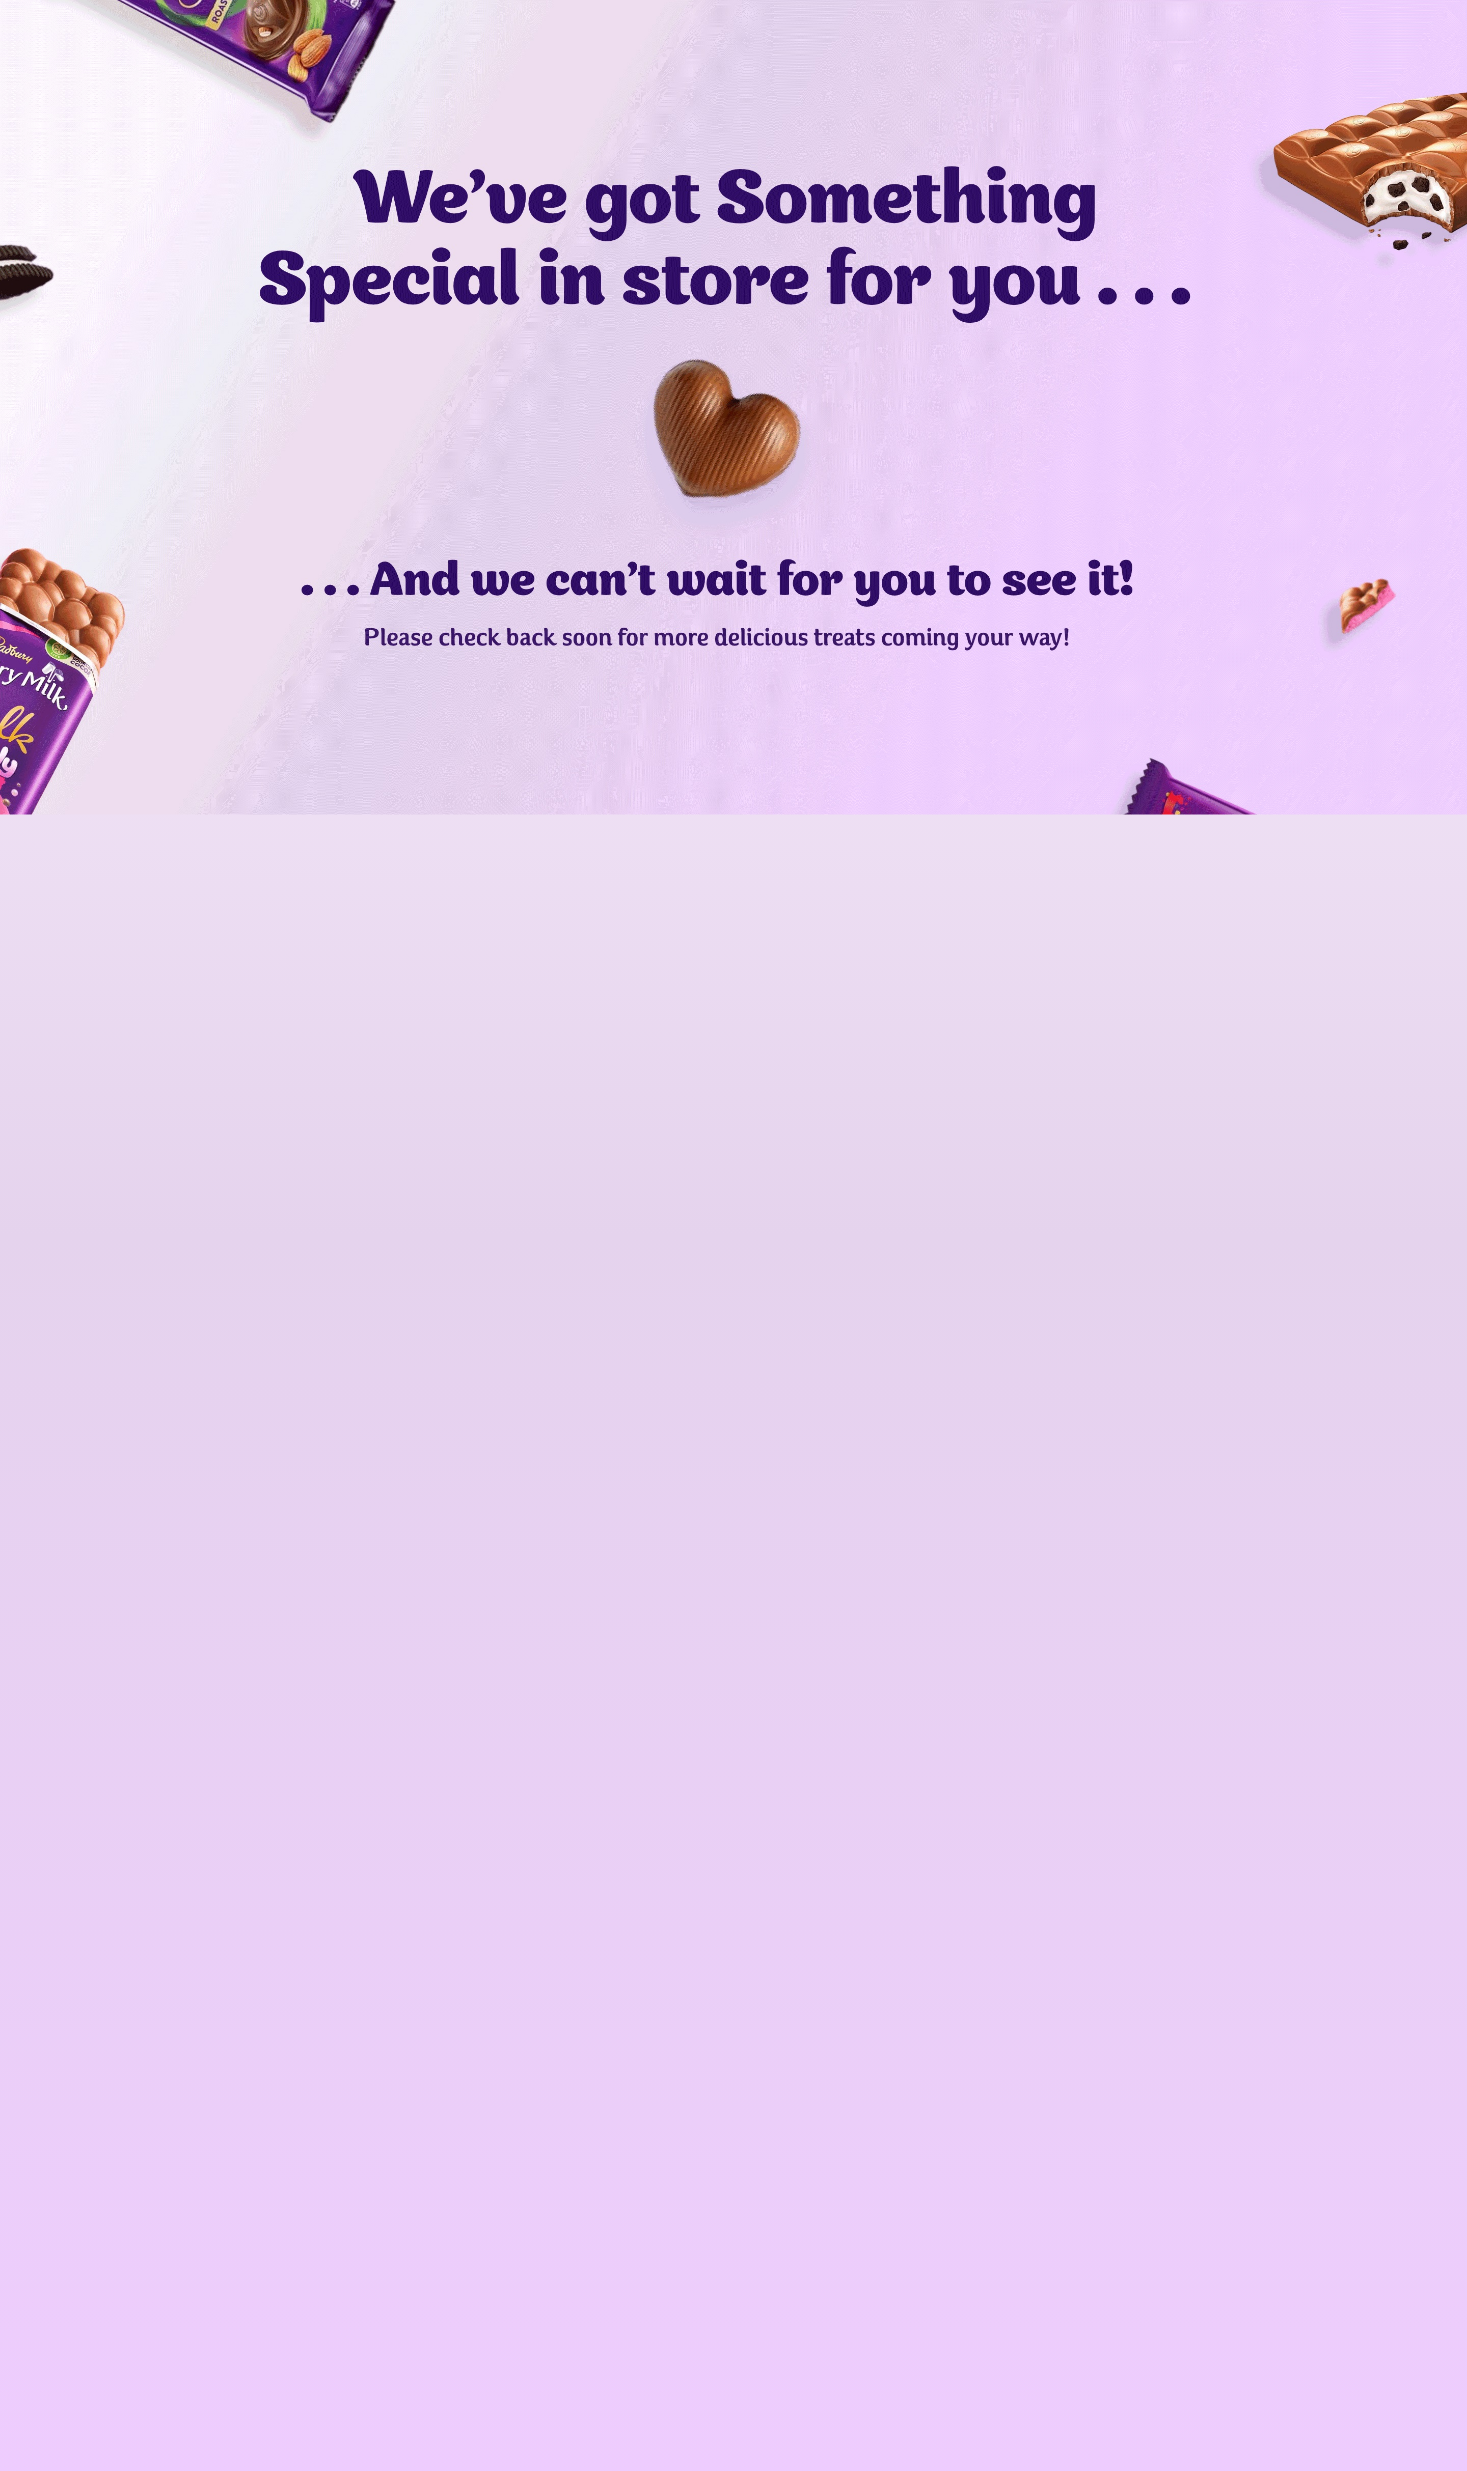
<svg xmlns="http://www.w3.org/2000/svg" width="1467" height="2471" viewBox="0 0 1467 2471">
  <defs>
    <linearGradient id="g1" gradientUnits="userSpaceOnUse" x1="733" y1="0" x2="734" y2="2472"><stop offset="0" stop-color="rgb(254,246,255)"/><stop offset="0.5" stop-color="rgb(229,211,237)"/><stop offset="1" stop-color="rgb(238,204,254)"/></linearGradient>
  </defs>
  <rect width="100%" height="100%" fill="rgb(255,255,255)"/>
  <rect x="0" y="814" width="1467" height="1657" fill="url(#g1)"/>
  <image x="0" y="0" width="1467" height="815" href="pic1.png"/>
</svg>
